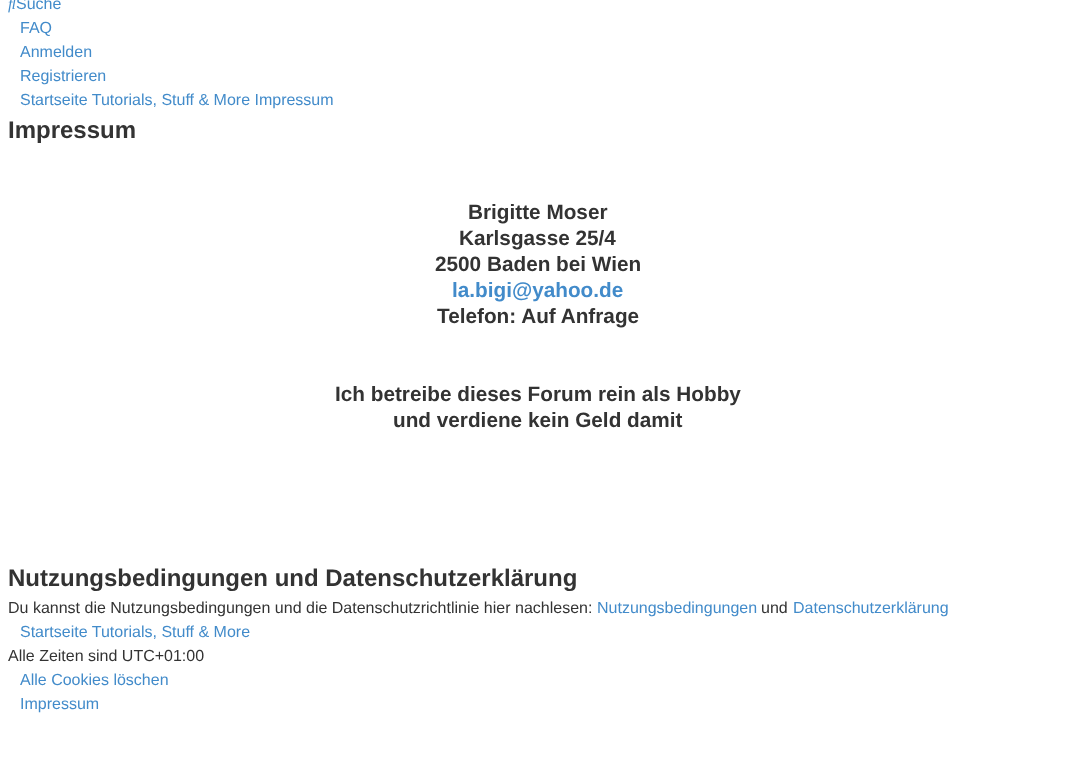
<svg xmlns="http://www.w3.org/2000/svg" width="1076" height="761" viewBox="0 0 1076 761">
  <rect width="100%" height="100%" fill="rgb(255,255,255)"/>
  <image x="8" y="0" width="8" height="13" href="pic1.png"/>
  <g font-family="Liberation Sans" font-size="16" fill="rgb(66,139,202)">
    <text x="16" y="9">Suche</text>
    <text>
      <tspan x="20" y="33">FAQ</tspan>
      <tspan x="20" y="57">Anmelden</tspan>
      <tspan x="20" y="81">Registrieren</tspan>
      <tspan x="20" y="105">Startseite Tutorials, Stuff &amp; More Impressum</tspan>
    </text>
  </g>
  <text x="8" y="138" font-family="Liberation Sans" font-size="24" font-weight="bold" fill="rgb(51,51,51)">Impressum</text>
  <g font-family="Liberation Sans" font-size="20.75" font-weight="bold" fill="rgb(51,51,51)">
    <text x="468" y="219">Brigitte Moser</text>
    <text x="459" y="245">Karlsgasse 25/4</text>
    <text x="435" y="271">2500 Baden bei Wien</text>
  </g>
  <text x="452" y="297" font-family="Liberation Sans" font-size="20.75" font-weight="bold" fill="rgb(66,139,202)">la.bigi@yahoo.de</text>
  <g font-family="Liberation Sans" font-size="20.75" font-weight="bold" fill="rgb(51,51,51)">
    <text x="437" y="323">Telefon: Auf Anfrage</text>
    <text x="335" y="401">Ich betreibe dieses Forum rein als Hobby</text>
    <text x="393" y="427">und verdiene kein Geld damit</text>
  </g>
  <text x="8" y="586" font-family="Liberation Sans" font-size="24" font-weight="bold" fill="rgb(51,51,51)">Nutzungsbedingungen und Datenschutzerklärung</text>
  <text x="8" y="613" font-family="Liberation Sans" font-size="16" fill="rgb(51,51,51)">Du kannst die Nutzungsbedingungen und die Datenschutzrichtlinie hier nachlesen:</text>
  <text x="597" y="613" font-family="Liberation Sans" font-size="16" fill="rgb(66,139,202)">Nutzungsbedingungen</text>
  <text x="761" y="613" font-family="Liberation Sans" font-size="16" fill="rgb(51,51,51)">und</text>
  <g font-family="Liberation Sans" font-size="16" fill="rgb(66,139,202)">
    <text x="793" y="613">Datenschutzerklärung</text>
    <text x="20" y="637">Startseite Tutorials, Stuff &amp; More</text>
  </g>
  <text x="8" y="661" font-family="Liberation Sans" font-size="16" fill="rgb(51,51,51)">Alle Zeiten sind UTC+01:00</text>
  <g font-family="Liberation Sans" font-size="16" fill="rgb(66,139,202)">
    <text>
      <tspan x="20" y="685">Alle Cookies löschen</tspan>
      <tspan x="20" y="709">Impressum</tspan>
    </text>
  </g>
</svg>
